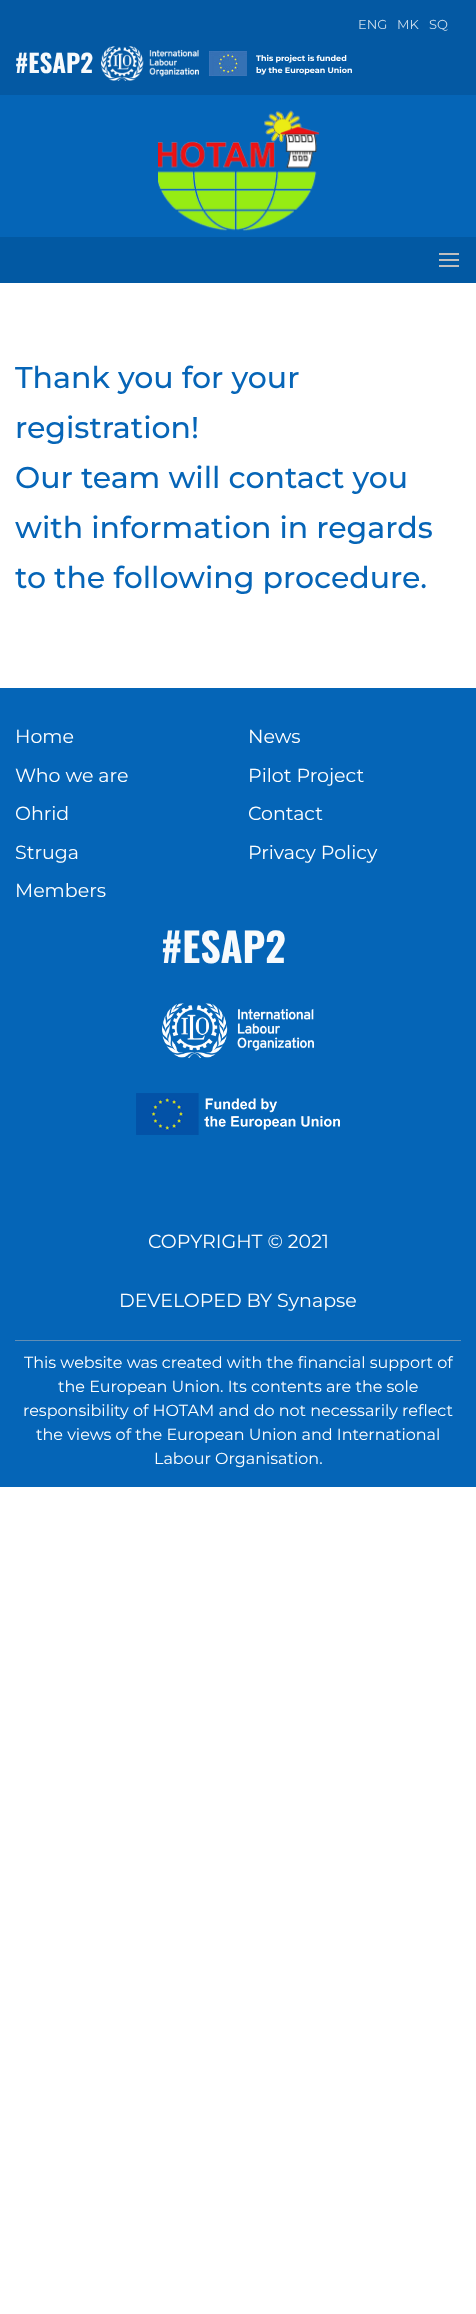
<svg xmlns="http://www.w3.org/2000/svg" width="476" height="2314" viewBox="0 0 476 2314">
  <rect width="100%" height="100%" fill="rgb(255,255,255)"/>
  <rect x="0" y="95" width="476" height="142" fill="rgb(5,101,183)"/>
  <rect x="0" y="0" width="476" height="95" fill="rgb(4,89,163)"/>
  <g font-family="Montserrat" font-size="13" fill="rgb(205,222,237)">
    <text x="358" y="29">ENG</text>
    <text x="397" y="29">MK</text>
    <text x="429" y="29">SQ</text>
  </g>
  <text x="15" y="73" font-family="Oswald" font-size="25" font-weight="bold" fill="rgb(247,250,252)">#ESAP2</text>
  <image x="101" y="46" width="98" height="35" href="pic1.png"/>
  <image x="209" y="51" width="38" height="25" href="pic2.png"/>
  <g font-family="Montserrat" font-size="8" font-weight="bold" fill="rgb(255,255,255)">
    <text>
      <tspan x="256" y="61">This project is funded</tspan>
      <tspan x="256" y="73">by the European Union</tspan>
    </text>
  </g>
  <image x="158" y="110" width="161" height="121" href="pic3.png"/>
  <rect x="0" y="237" width="476" height="46" fill="rgb(2,89,163)"/>
  <rect x="439" y="253" width="20" height="2" fill="rgb(191,191,191)"/>
  <rect x="439" y="259" width="20" height="2" fill="rgb(191,191,191)"/>
  <rect x="439" y="265" width="20" height="2" fill="rgb(191,191,191)"/>
  <g font-family="Montserrat" font-size="30" font-weight="500" fill="rgb(6,101,183)">
    <text>
      <tspan x="15" y="388">Thank you for your</tspan>
      <tspan x="15" y="438">registration!</tspan>
      <tspan x="15" y="488">Our team will contact you</tspan>
      <tspan x="15" y="538">with information in regards</tspan>
      <tspan x="15" y="588">to the following procedure.</tspan>
    </text>
  </g>
  <rect x="0" y="688" width="476" height="799" fill="rgb(5,101,183)"/>
  <g font-family="Montserrat" font-size="19" fill="rgb(255,255,255)">
    <text x="15" y="743">Home</text>
    <text x="248" y="743">News</text>
    <text x="15" y="782">Who we are</text>
    <text x="248" y="782">Pilot Project</text>
    <text x="15" y="820">Ohrid</text>
    <text x="248" y="820">Contact</text>
    <text x="15" y="859">Struga</text>
    <text x="248" y="859">Privacy Policy</text>
    <text x="15" y="897">Members</text>
  </g>
  <text x="161" y="963" font-family="Oswald" font-size="40" font-weight="bold" fill="rgb(247,250,252)">#ESAP2</text>
  <image x="162" y="1003" width="152" height="55" href="pic4.png"/>
  <image x="136" y="1093" width="204" height="42" href="pic5.png"/>
  <g font-family="Montserrat" font-size="19" fill="rgb(255,255,255)">
    <text x="148" y="1248">COPYRIGHT © 2021</text>
    <text x="119" y="1307">DEVELOPED BY Synapse</text>
  </g>
  <rect x="15" y="1340" width="446" height="1" fill="rgb(97,142,181)"/>
  <g font-family="Montserrat" font-size="16" fill="rgb(255,255,255)">
    <text x="24" y="1368">This website was created with the financial support of</text>
    <text x="58" y="1392">the European Union. Its contents are the sole</text>
    <text x="23" y="1416">responsibility of HOTAM and do not necessarily reflect</text>
    <text x="36" y="1440">the views of the European Union and International</text>
    <text x="154" y="1464">Labour Organisation.</text>
  </g>
</svg>
